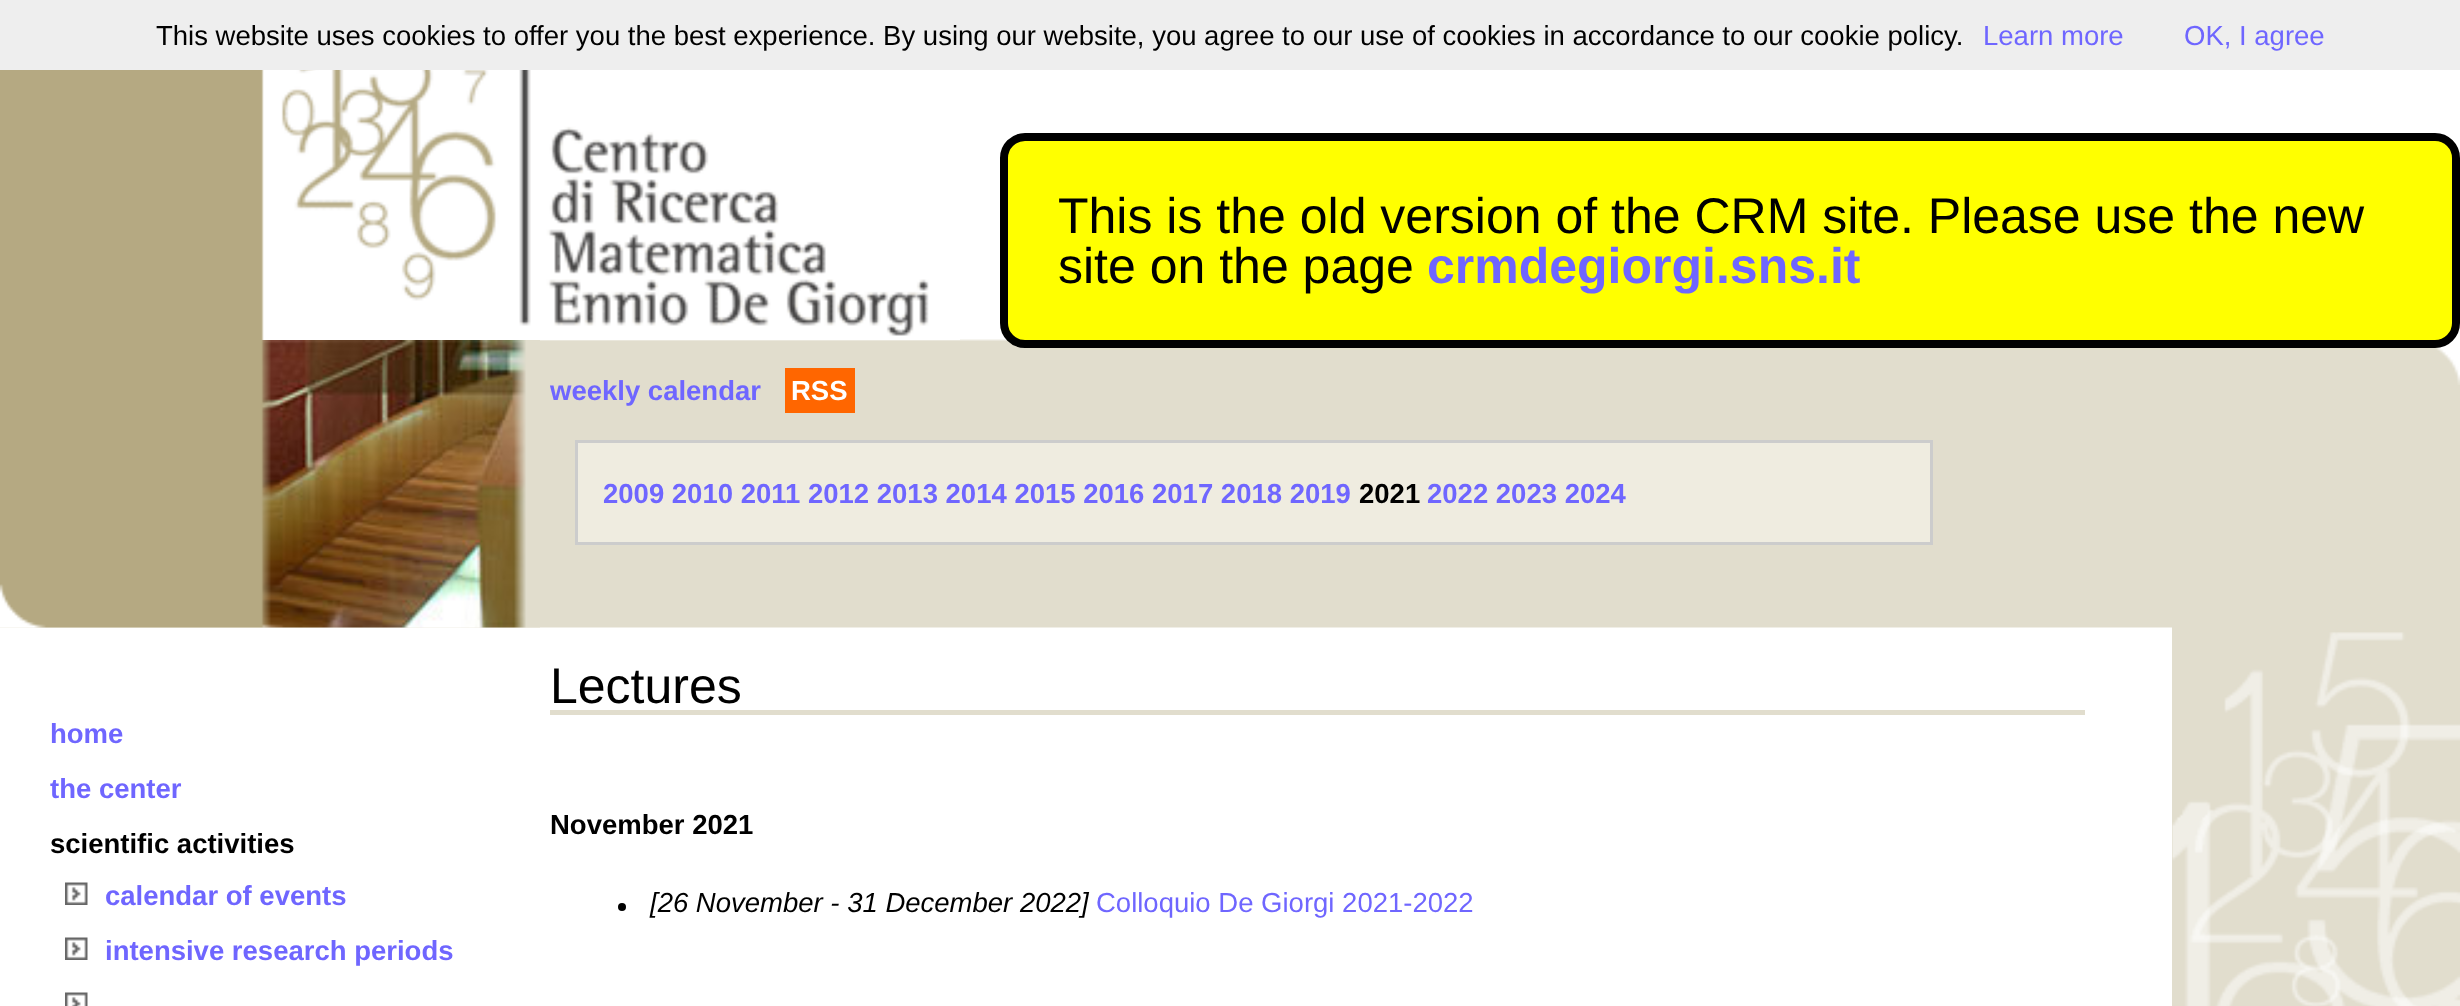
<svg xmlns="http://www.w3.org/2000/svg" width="2460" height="1006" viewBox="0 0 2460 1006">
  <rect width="100%" height="100%" fill="rgb(255,255,255)"/>
  <rect x="2172" y="385" width="288" height="621" fill="rgb(225,221,205)"/>
  <rect x="0" y="0" width="2460" height="70" fill="rgb(238,238,238)"/>
  <text x="156" y="45" font-family="Liberation Sans" font-size="27.5" fill="rgb(0,0,0)">This website uses cookies to offer you the best experience. By using our website, you agree to our use of cookies in accordance to our cookie policy.</text>
  <g font-family="Liberation Sans" font-size="27.5" fill="rgb(111,102,255)">
    <text x="1983" y="45">Learn more</text>
    <text x="2184" y="45">OK, I agree</text>
  </g>
  <image x="2410" y="70" width="50" height="315" href="pic1.png"/>
  <image x="0" y="70" width="2410" height="558" href="pic2.png"/>
  <image x="0" y="70" width="960" height="270" href="pic3.png"/>
  <rect x="1004" y="137" width="1452" height="207" rx="21" fill="rgb(255,255,0)" stroke="rgb(0,0,0)" stroke-width="8"/>
  <g font-family="Liberation Sans" font-size="50" fill="rgb(0,0,0)">
    <text>
      <tspan x="1058" y="233">This is the old version of the CRM site. Please use the new</tspan>
      <tspan x="1058" y="283">site on the page</tspan>
    </text>
  </g>
  <text x="1427" y="283" font-family="Liberation Sans" font-size="50" font-weight="bold" fill="rgb(111,102,255)">crmdegiorgi.sns.it</text>
  <image x="0" y="340" width="540" height="288" href="pic4.png"/>
  <text x="550" y="400" font-family="Liberation Sans" font-size="27.5" font-weight="bold" fill="rgb(111,102,255)">weekly calendar</text>
  <rect x="785" y="368" width="70" height="45" fill="rgb(255,102,0)"/>
  <text x="791" y="400" font-family="Liberation Sans" font-size="27.5" font-weight="bold" fill="rgb(255,255,255)">RSS</text>
  <rect x="576.5" y="441.5" width="1355" height="102" fill="rgb(239,236,224)" stroke="rgb(204,204,204)" stroke-width="3"/>
  <text x="603" y="503" font-family="Liberation Sans" font-size="27.5" font-weight="bold" fill="rgb(111,102,255)">2009 2010 2011 2012 2013 2014 2015 2016 2017 2018 2019</text>
  <text x="1359" y="503" font-family="Liberation Sans" font-size="27.5" font-weight="bold" fill="rgb(0,0,0)">2021</text>
  <g font-family="Liberation Sans" font-size="27.5" font-weight="bold" fill="rgb(111,102,255)">
    <text x="1427" y="503">2022 2023 2024</text>
    <text x="50" y="743">home</text>
    <text x="50" y="798">the center</text>
  </g>
  <text x="50" y="853" font-family="Liberation Sans" font-size="27.5" font-weight="bold" fill="rgb(0,0,0)">scientific activities</text>
  <image x="65" y="882" width="23" height="23" href="pic5.png"/>
  <text x="105" y="905" font-family="Liberation Sans" font-size="27.5" font-weight="bold" fill="rgb(111,102,255)">calendar of events</text>
  <image x="65" y="937" width="23" height="23" href="pic5.png"/>
  <text x="105" y="960" font-family="Liberation Sans" font-size="27.5" font-weight="bold" fill="rgb(111,102,255)">intensive research periods</text>
  <image x="65" y="992" width="23" height="14" href="pic6.png"/>
  <rect x="550" y="710" width="1535" height="5" fill="rgb(225,221,205)"/>
  <text x="550" y="703" font-family="Liberation Sans" font-size="50" fill="rgb(0,0,0)">Lectures</text>
  <text x="550" y="834" font-family="Liberation Sans" font-size="27.5" font-weight="bold" fill="rgb(0,0,0)">November 2021</text>
  <circle cx="622" cy="907" r="4" fill="rgb(0,0,0)"/>
  <text x="650" y="912" font-family="Liberation Sans" font-size="27.5" font-style="italic" fill="rgb(0,0,0)">[26 November - 31 December 2022]</text>
  <text x="1096" y="912" font-family="Liberation Sans" font-size="27.5" fill="rgb(111,102,255)">Colloquio De Giorgi 2021-2022</text>
  <image x="2172" y="632" width="288" height="374" href="pic7.png"/>
</svg>
